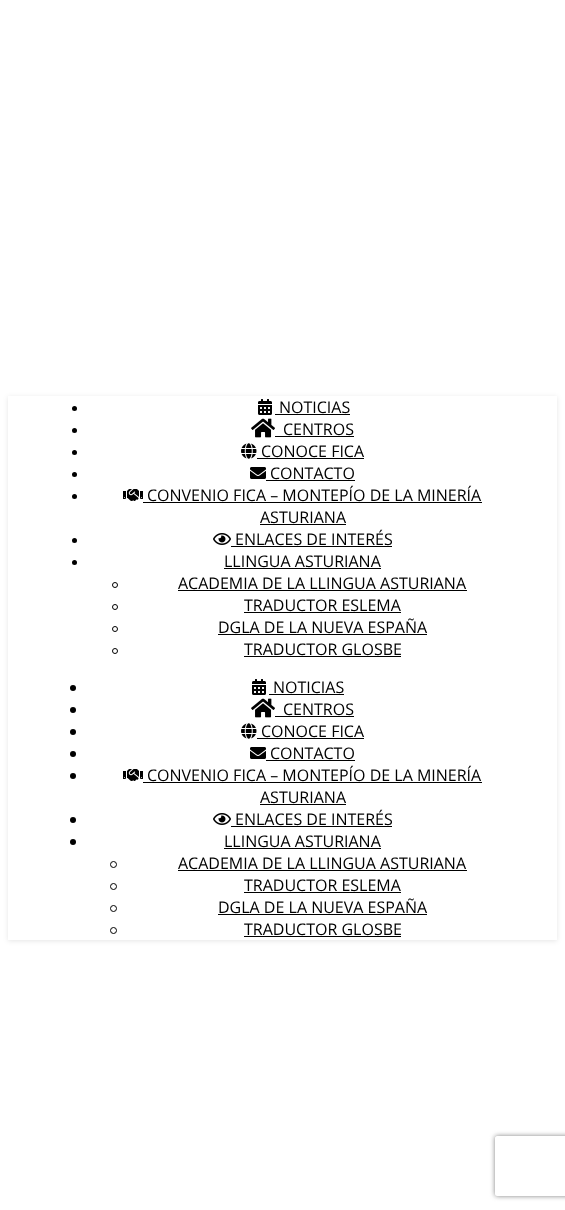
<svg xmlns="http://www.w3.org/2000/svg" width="565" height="1210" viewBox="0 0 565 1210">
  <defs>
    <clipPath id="clip1"><path d="M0 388H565V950H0ZM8 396H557V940H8Z" clip-rule="evenodd"/></clipPath>
    <clipPath id="clip2"><path d="M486 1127H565V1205H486ZM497 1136H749C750 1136 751 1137 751 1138V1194C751 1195 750 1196 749 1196H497C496 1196 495 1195 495 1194V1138C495 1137 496 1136 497 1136Z" clip-rule="evenodd"/></clipPath>
  </defs>
  <rect width="100%" height="100%" fill="rgb(255,255,255)"/>
  <g clip-path="url(#clip1)">
    <rect x="8" y="397" width="549" height="544" fill="rgba(0,0,0,0.1)" filter="blur(2.5px)"/>
  </g>
  <circle cx="74.5" cy="408.5" r="2.5" fill="rgb(0,0,0)"/>
  <image x="258" y="399" width="14" height="16" href="pic1.png"/>
  <text x="279" y="413" font-family="Open Sans" font-size="16" fill="rgb(0,0,0)">NOTICIAS</text>
  <rect x="275" y="414" width="75" height="1" fill="rgb(0,0,0)"/>
  <circle cx="74.5" cy="430.5" r="2.5" fill="rgb(0,0,0)"/>
  <image x="251" y="418" width="24" height="20" href="pic2.png"/>
  <text x="283" y="435" font-family="Open Sans" font-size="16" fill="rgb(0,0,0)">CENTROS</text>
  <rect x="275" y="436" width="79" height="1" fill="rgb(0,0,0)"/>
  <circle cx="74.5" cy="452.5" r="2.5" fill="rgb(0,0,0)"/>
  <image x="241" y="443" width="16" height="16" href="pic3.png"/>
  <text x="261" y="457" font-family="Open Sans" font-size="16" fill="rgb(0,0,0)">CONOCE FICA</text>
  <rect x="257" y="458" width="107" height="1" fill="rgb(0,0,0)"/>
  <circle cx="74.5" cy="474.5" r="2.5" fill="rgb(0,0,0)"/>
  <image x="250" y="467" width="16" height="12" href="pic4.png"/>
  <text x="270" y="479" font-family="Open Sans" font-size="16" fill="rgb(0,0,0)">CONTACTO</text>
  <rect x="266" y="480" width="89" height="1" fill="rgb(0,0,0)"/>
  <circle cx="74.5" cy="496.5" r="2.5" fill="rgb(0,0,0)"/>
  <image x="123" y="489" width="20" height="12" href="pic5.png"/>
  <text x="147" y="501" font-family="Open Sans" font-size="16" fill="rgb(0,0,0)">CONVENIO FICA – MONTEPÍO DE LA MINERÍA</text>
  <rect x="143" y="502" width="339" height="1" fill="rgb(0,0,0)"/>
  <text x="260" y="523" font-family="Open Sans" font-size="16" fill="rgb(0,0,0)">ASTURIANA</text>
  <rect x="260" y="524" width="86" height="1" fill="rgb(0,0,0)"/>
  <circle cx="74.5" cy="540.5" r="2.5" fill="rgb(0,0,0)"/>
  <image x="213" y="533" width="18" height="12" href="pic6.png"/>
  <text x="235" y="545" font-family="Open Sans" font-size="16" fill="rgb(0,0,0)">ENLACES DE INTERÉS</text>
  <rect x="231" y="546" width="161" height="1" fill="rgb(0,0,0)"/>
  <circle cx="74.5" cy="562.5" r="2.5" fill="rgb(0,0,0)"/>
  <text x="224" y="567" font-family="Open Sans" font-size="16" fill="rgb(0,0,0)">LLINGUA ASTURIANA</text>
  <rect x="224" y="568" width="157" height="1" fill="rgb(0,0,0)"/>
  <circle cx="115" cy="585" r="2.5" fill="none" stroke="rgb(0,0,0)"/>
  <text x="178" y="589" font-family="Open Sans" font-size="16" fill="rgb(0,0,0)">ACADEMIA DE LA LLINGUA ASTURIANA</text>
  <rect x="178" y="590" width="289" height="1" fill="rgb(0,0,0)"/>
  <circle cx="115" cy="607" r="2.5" fill="none" stroke="rgb(0,0,0)"/>
  <text x="244" y="611" font-family="Open Sans" font-size="16" fill="rgb(0,0,0)">TRADUCTOR ESLEMA</text>
  <rect x="244" y="612" width="157" height="1" fill="rgb(0,0,0)"/>
  <circle cx="115" cy="629" r="2.5" fill="none" stroke="rgb(0,0,0)"/>
  <text x="218" y="633" font-family="Open Sans" font-size="16" fill="rgb(0,0,0)">DGLA DE LA NUEVA ESPAÑA</text>
  <rect x="218" y="634" width="209" height="1" fill="rgb(0,0,0)"/>
  <circle cx="115" cy="651" r="2.5" fill="none" stroke="rgb(0,0,0)"/>
  <text x="244" y="655" font-family="Open Sans" font-size="16" fill="rgb(0,0,0)">TRADUCTOR GLOSBE</text>
  <rect x="244" y="656" width="157" height="1" fill="rgb(0,0,0)"/>
  <circle cx="73" cy="688" r="3" fill="rgb(0,0,0)"/>
  <image x="252" y="679" width="14" height="16" href="pic1.png"/>
  <text x="273" y="693" font-family="Open Sans" font-size="16" fill="rgb(0,0,0)">NOTICIAS</text>
  <rect x="269" y="694" width="75" height="1" fill="rgb(0,0,0)"/>
  <circle cx="73" cy="710" r="3" fill="rgb(0,0,0)"/>
  <image x="251" y="698" width="24" height="20" href="pic2.png"/>
  <text x="283" y="715" font-family="Open Sans" font-size="16" fill="rgb(0,0,0)">CENTROS</text>
  <rect x="275" y="716" width="79" height="1" fill="rgb(0,0,0)"/>
  <circle cx="73" cy="732" r="3" fill="rgb(0,0,0)"/>
  <image x="241" y="723" width="16" height="16" href="pic3.png"/>
  <text x="261" y="737" font-family="Open Sans" font-size="16" fill="rgb(0,0,0)">CONOCE FICA</text>
  <rect x="257" y="738" width="107" height="1" fill="rgb(0,0,0)"/>
  <circle cx="73" cy="754" r="3" fill="rgb(0,0,0)"/>
  <image x="250" y="747" width="16" height="12" href="pic4.png"/>
  <text x="270" y="759" font-family="Open Sans" font-size="16" fill="rgb(0,0,0)">CONTACTO</text>
  <rect x="266" y="760" width="89" height="1" fill="rgb(0,0,0)"/>
  <circle cx="73" cy="776" r="3" fill="rgb(0,0,0)"/>
  <image x="123" y="769" width="20" height="12" href="pic5.png"/>
  <text x="147" y="781" font-family="Open Sans" font-size="16" fill="rgb(0,0,0)">CONVENIO FICA – MONTEPÍO DE LA MINERÍA</text>
  <rect x="143" y="782" width="339" height="1" fill="rgb(0,0,0)"/>
  <text x="260" y="803" font-family="Open Sans" font-size="16" fill="rgb(0,0,0)">ASTURIANA</text>
  <rect x="260" y="804" width="86" height="1" fill="rgb(0,0,0)"/>
  <circle cx="73" cy="820" r="3" fill="rgb(0,0,0)"/>
  <image x="213" y="813" width="18" height="12" href="pic6.png"/>
  <text x="235" y="825" font-family="Open Sans" font-size="16" fill="rgb(0,0,0)">ENLACES DE INTERÉS</text>
  <rect x="231" y="826" width="161" height="1" fill="rgb(0,0,0)"/>
  <circle cx="73" cy="842" r="3" fill="rgb(0,0,0)"/>
  <text x="224" y="847" font-family="Open Sans" font-size="16" fill="rgb(0,0,0)">LLINGUA ASTURIANA</text>
  <rect x="224" y="848" width="157" height="1" fill="rgb(0,0,0)"/>
  <circle cx="113.5" cy="864.5" r="3" fill="none" stroke="rgb(0,0,0)"/>
  <text x="178" y="869" font-family="Open Sans" font-size="16" fill="rgb(0,0,0)">ACADEMIA DE LA LLINGUA ASTURIANA</text>
  <rect x="178" y="870" width="289" height="1" fill="rgb(0,0,0)"/>
  <circle cx="113.5" cy="886.5" r="3" fill="none" stroke="rgb(0,0,0)"/>
  <text x="244" y="891" font-family="Open Sans" font-size="16" fill="rgb(0,0,0)">TRADUCTOR ESLEMA</text>
  <rect x="244" y="892" width="157" height="1" fill="rgb(0,0,0)"/>
  <circle cx="113.5" cy="908.5" r="3" fill="none" stroke="rgb(0,0,0)"/>
  <text x="218" y="913" font-family="Open Sans" font-size="16" fill="rgb(0,0,0)">DGLA DE LA NUEVA ESPAÑA</text>
  <rect x="218" y="914" width="209" height="1" fill="rgb(0,0,0)"/>
  <circle cx="113.5" cy="930.5" r="3" fill="none" stroke="rgb(0,0,0)"/>
  <text x="244" y="935" font-family="Open Sans" font-size="16" fill="rgb(0,0,0)">TRADUCTOR GLOSBE</text>
  <rect x="244" y="936" width="157" height="1" fill="rgb(0,0,0)"/>
  <g clip-path="url(#clip2)">
    <rect x="495" y="1136" width="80" height="60" rx="2" fill="rgb(128,128,128)" filter="blur(2.5px)"/>
  </g>
</svg>
